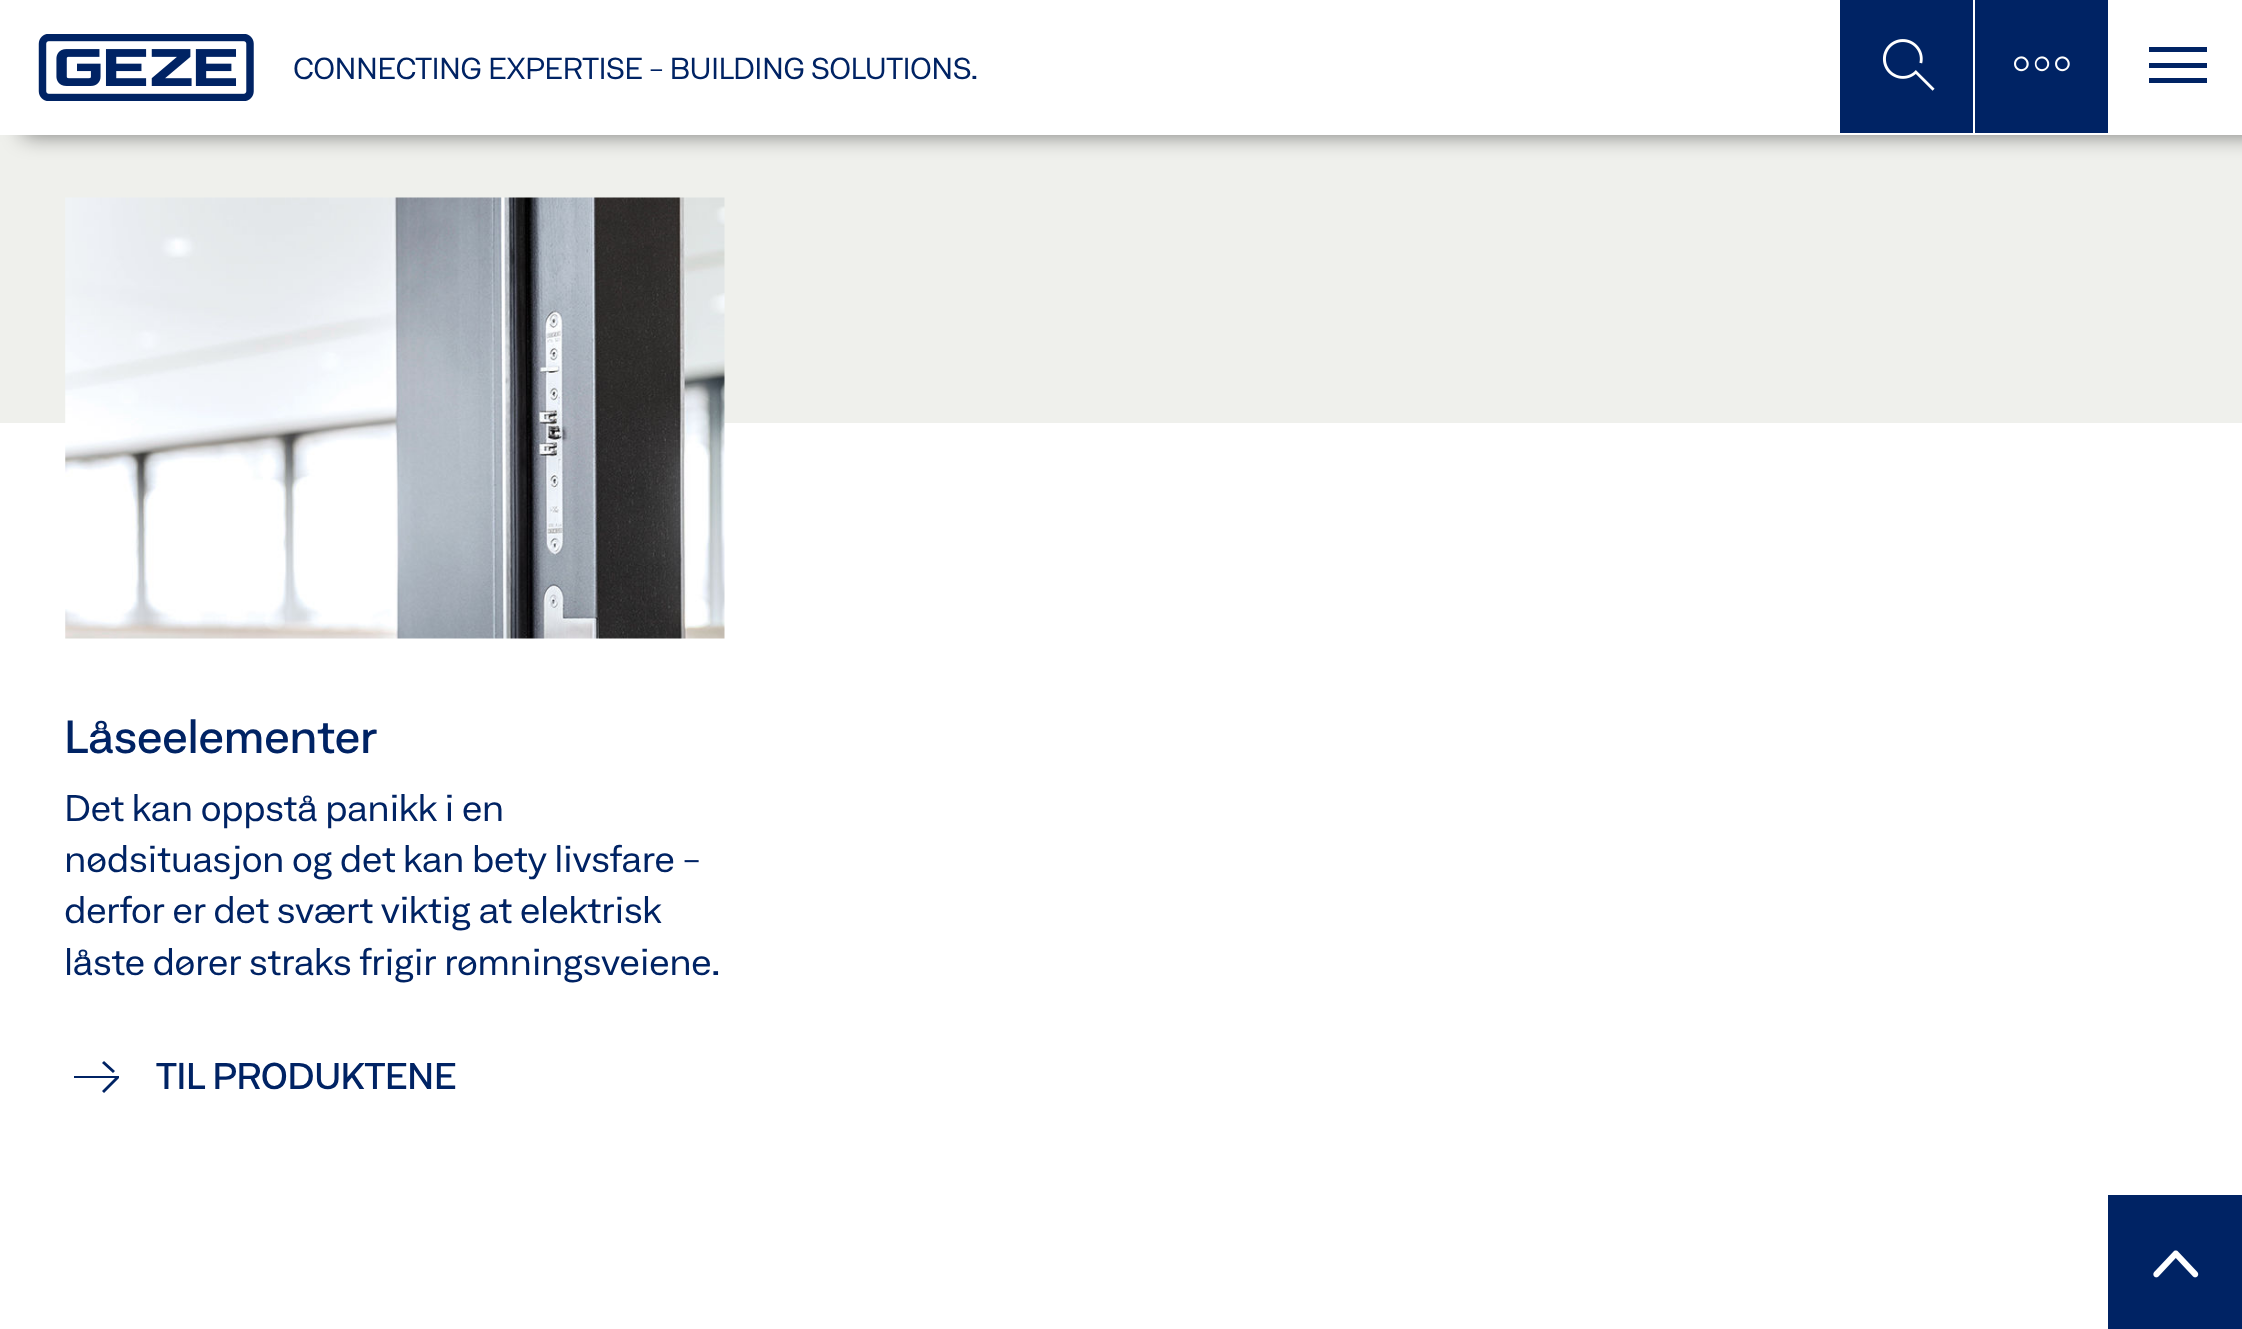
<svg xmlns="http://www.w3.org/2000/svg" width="2242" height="1329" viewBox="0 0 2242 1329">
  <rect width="100%" height="100%" fill="rgb(255,255,255)"/>
  <rect x="0" y="135" width="2242" height="288" fill="rgb(239,240,236)"/>
  <rect x="23" y="0" width="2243" height="135" fill="rgba(0,0,0,0.5)" filter="blur(11px)"/>
  <rect x="0" y="0" width="2242" height="135" fill="rgb(255,255,255)"/>
  <image x="38" y="34" width="216" height="67" href="pic1.png"/>
  <rect x="1840" y="0" width="133" height="133" fill="rgb(0,35,100)"/>
  <image x="1882" y="39" width="53" height="52" href="pic2.png"/>
  <rect x="1975" y="0" width="133" height="133" fill="rgb(0,35,100)"/>
  <image x="2014" y="56" width="56" height="16" href="pic3.png"/>
  <path d="M2149 63H2207V68H2149ZM2149 47H2207V52H2149ZM2149 78H2207V83H2149Z" fill="rgb(0,35,100)"/>
  <text x="293" y="79" font-family="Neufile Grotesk" font-size="29.25" letter-spacing="-0.55" fill="rgb(0,35,100)">CONNECTING EXPERTISE - BUILDING SOLUTIONS.</text>
  <image x="65" y="197" width="660" height="442" href="pic4.png"/>
  <text x="64" y="753" font-family="Neufile Grotesk" font-size="45" font-weight="500" letter-spacing="-0.55" fill="rgb(0,35,100)">Låseelementer</text>
  <g font-family="Neufile Grotesk" font-size="36" letter-spacing="-0.55" fill="rgb(0,35,100)">
    <text>
      <tspan x="64" y="821">Det kan oppstå panikk i en</tspan>
      <tspan x="64" y="872">nødsituasjon og det kan bety livsfare -</tspan>
      <tspan x="64" y="923">derfor er det svært viktig at elektrisk</tspan>
      <tspan x="64" y="975">låste dører straks frigir rømningsveiene.</tspan>
    </text>
  </g>
  <path d="M119 1076H74V1078H115L102 1091L104 1093L119 1078ZM102 1063L104 1061L115 1071L113 1073Z" fill="rgb(0,35,100)"/>
  <text x="156" y="1089" font-family="Neufile Grotesk" font-size="36" font-weight="500" letter-spacing="-0.55" fill="rgb(0,35,100)">TIL PRODUKTENE</text>
  <rect x="2108" y="1195" width="134" height="134" fill="rgb(0,35,100)"/>
  <image x="2153" y="1250" width="46" height="28" href="pic5.png"/>
</svg>
